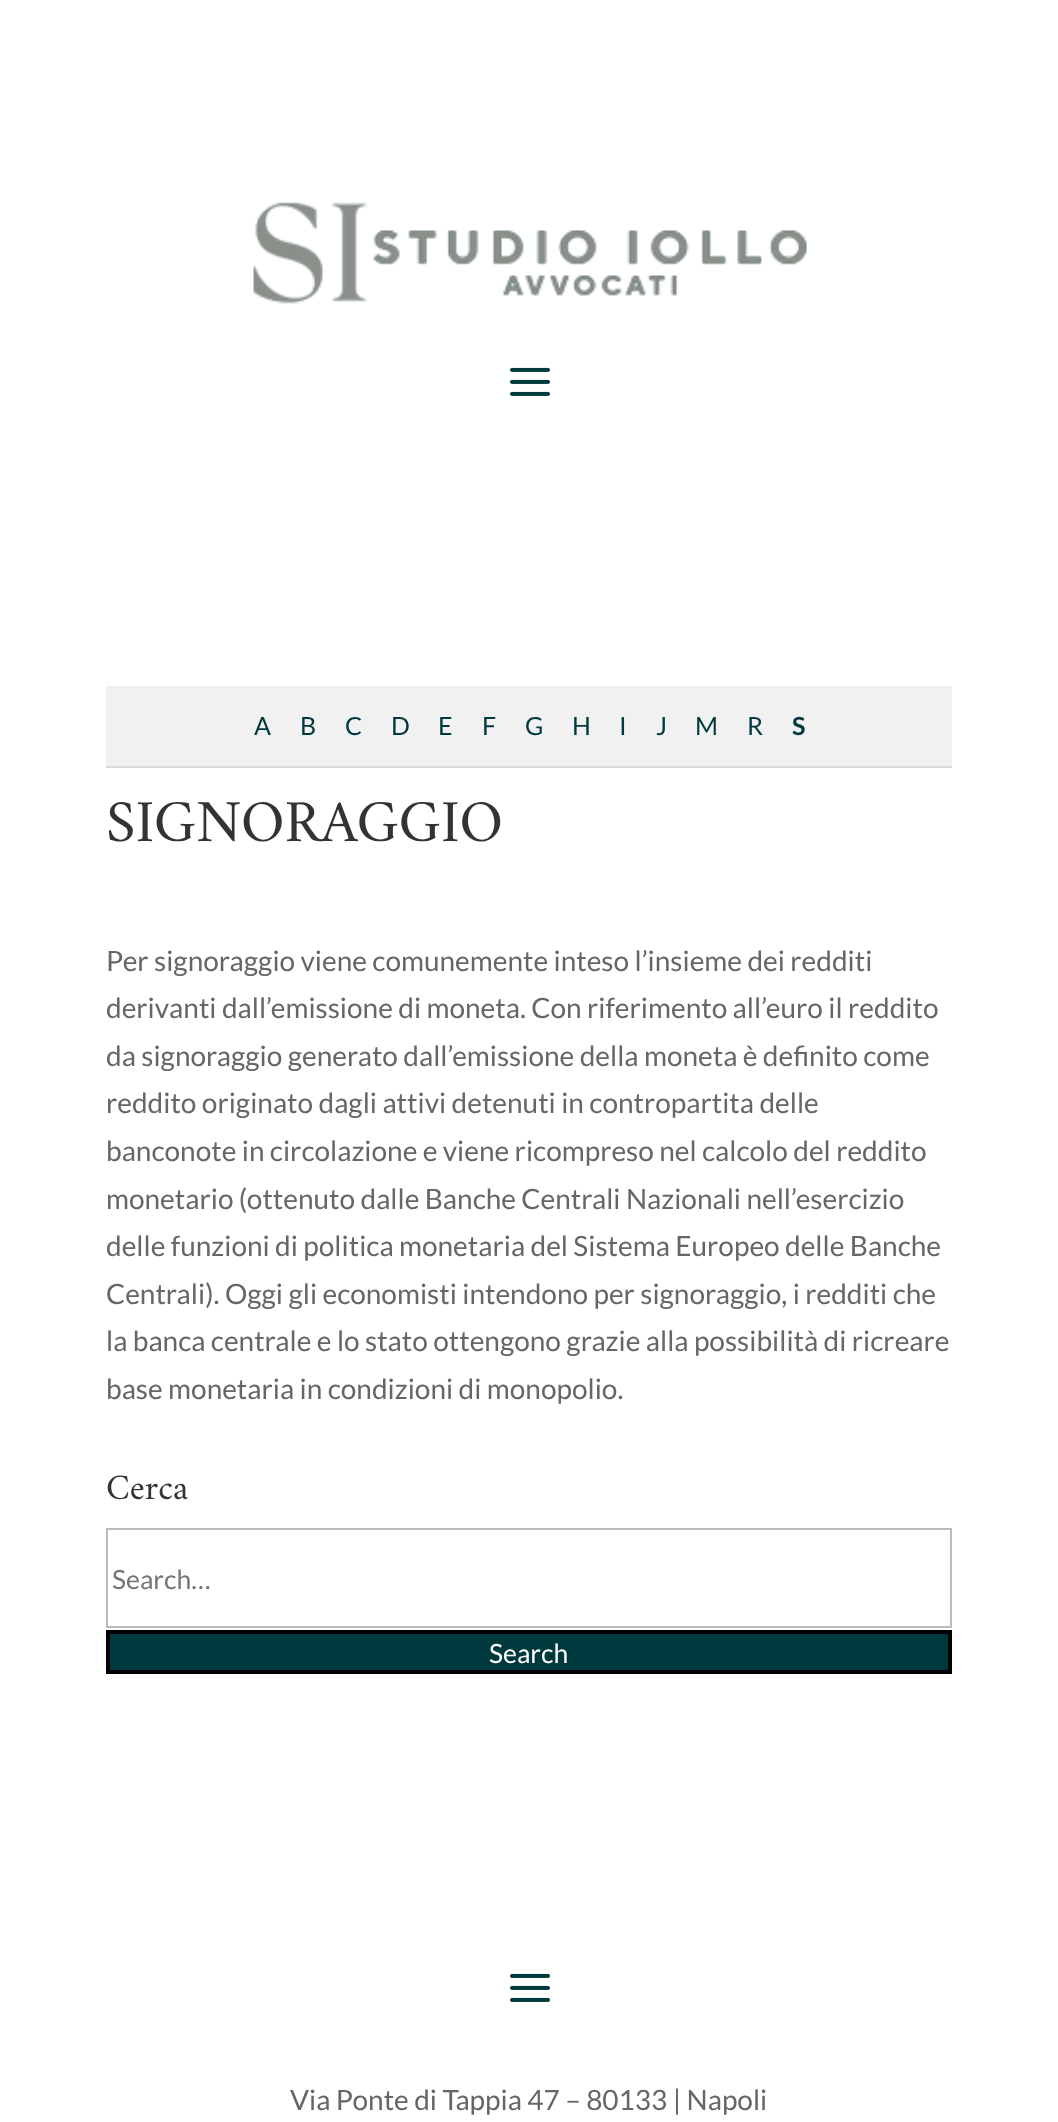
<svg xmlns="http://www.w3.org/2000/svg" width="1058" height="2122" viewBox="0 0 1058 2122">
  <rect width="100%" height="100%" fill="rgb(255,255,255)"/>
  <image x="253" y="202" width="554" height="102" href="pic1.png"/>
  <image x="510" y="367" width="40" height="29" href="pic2.png"/>
  <rect x="106" y="686" width="846" height="80" fill="rgb(241,241,241)"/>
  <rect x="106" y="766" width="846" height="2" fill="rgb(217,217,217)"/>
  <g font-family="Lato" font-size="25" letter-spacing="-2" fill="rgb(0,57,61)">
    <text x="254" y="735">A</text>
    <text x="300" y="735">B</text>
    <text x="345" y="735">C</text>
    <text x="391" y="735">D</text>
    <text x="438" y="735">E</text>
    <text x="482" y="735">F</text>
    <text x="525" y="735">G</text>
    <text x="572" y="735">H</text>
    <text x="619" y="735">I</text>
    <text x="656" y="735">J</text>
    <text x="695" y="735">M</text>
    <text x="747" y="735">R</text>
  </g>
  <text x="792" y="735" font-family="Lato" font-size="25" font-weight="bold" letter-spacing="-2" fill="rgb(0,57,61)">S</text>
  <text x="106" y="841" font-family="Amiri" font-size="60" fill="rgb(51,51,51)">SIGNORAGGIO</text>
  <g font-family="Lato" font-size="28" fill="rgb(102,102,102)">
    <text>
      <tspan x="106" y="971">Per signoraggio viene comunemente inteso l’insieme dei redditi</tspan>
      <tspan x="106" y="1018">derivanti dall’emissione di moneta. Con riferimento all’euro il reddito</tspan>
      <tspan x="106" y="1066">da signoraggio generato dall’emissione della moneta è definito come</tspan>
      <tspan x="106" y="1113">reddito originato dagli attivi detenuti in contropartita delle</tspan>
      <tspan x="106" y="1161">banconote in circolazione e viene ricompreso nel calcolo del reddito</tspan>
      <tspan x="106" y="1209">monetario (ottenuto dalle Banche Centrali Nazionali nell’esercizio</tspan>
      <tspan x="106" y="1256">delle funzioni di politica monetaria del Sistema Europeo delle Banche</tspan>
      <tspan x="106" y="1304">Centrali). Oggi gli economisti intendono per signoraggio, i redditi che</tspan>
      <tspan x="106" y="1351">la banca centrale e lo stato ottengono grazie alla possibilità di ricreare</tspan>
      <tspan x="106" y="1399">base monetaria in condizioni di monopolio.</tspan>
    </text>
  </g>
  <text x="106" y="1499" font-family="Amiri" font-size="36" fill="rgb(51,51,51)">Cerca</text>
  <rect x="107" y="1529" width="844" height="98" fill="none" stroke="rgb(187,187,187)" stroke-width="2"/>
  <text x="112" y="1589" font-family="Lato" font-size="26.5" fill="rgb(117,117,117)">Search…</text>
  <rect x="108" y="1632" width="842" height="40" fill="rgb(0,57,61)" stroke="rgb(0,0,0)" stroke-width="4"/>
  <text x="489" y="1663" font-family="Lato" font-size="26.5" fill="rgb(255,255,255)">Search</text>
  <image x="510" y="1973" width="40" height="29" href="pic2.png"/>
  <text x="290" y="2110" font-family="Lato" font-size="28" fill="rgb(102,102,102)">Via Ponte di Tappia 47 – 80133 | Napoli</text>
</svg>
